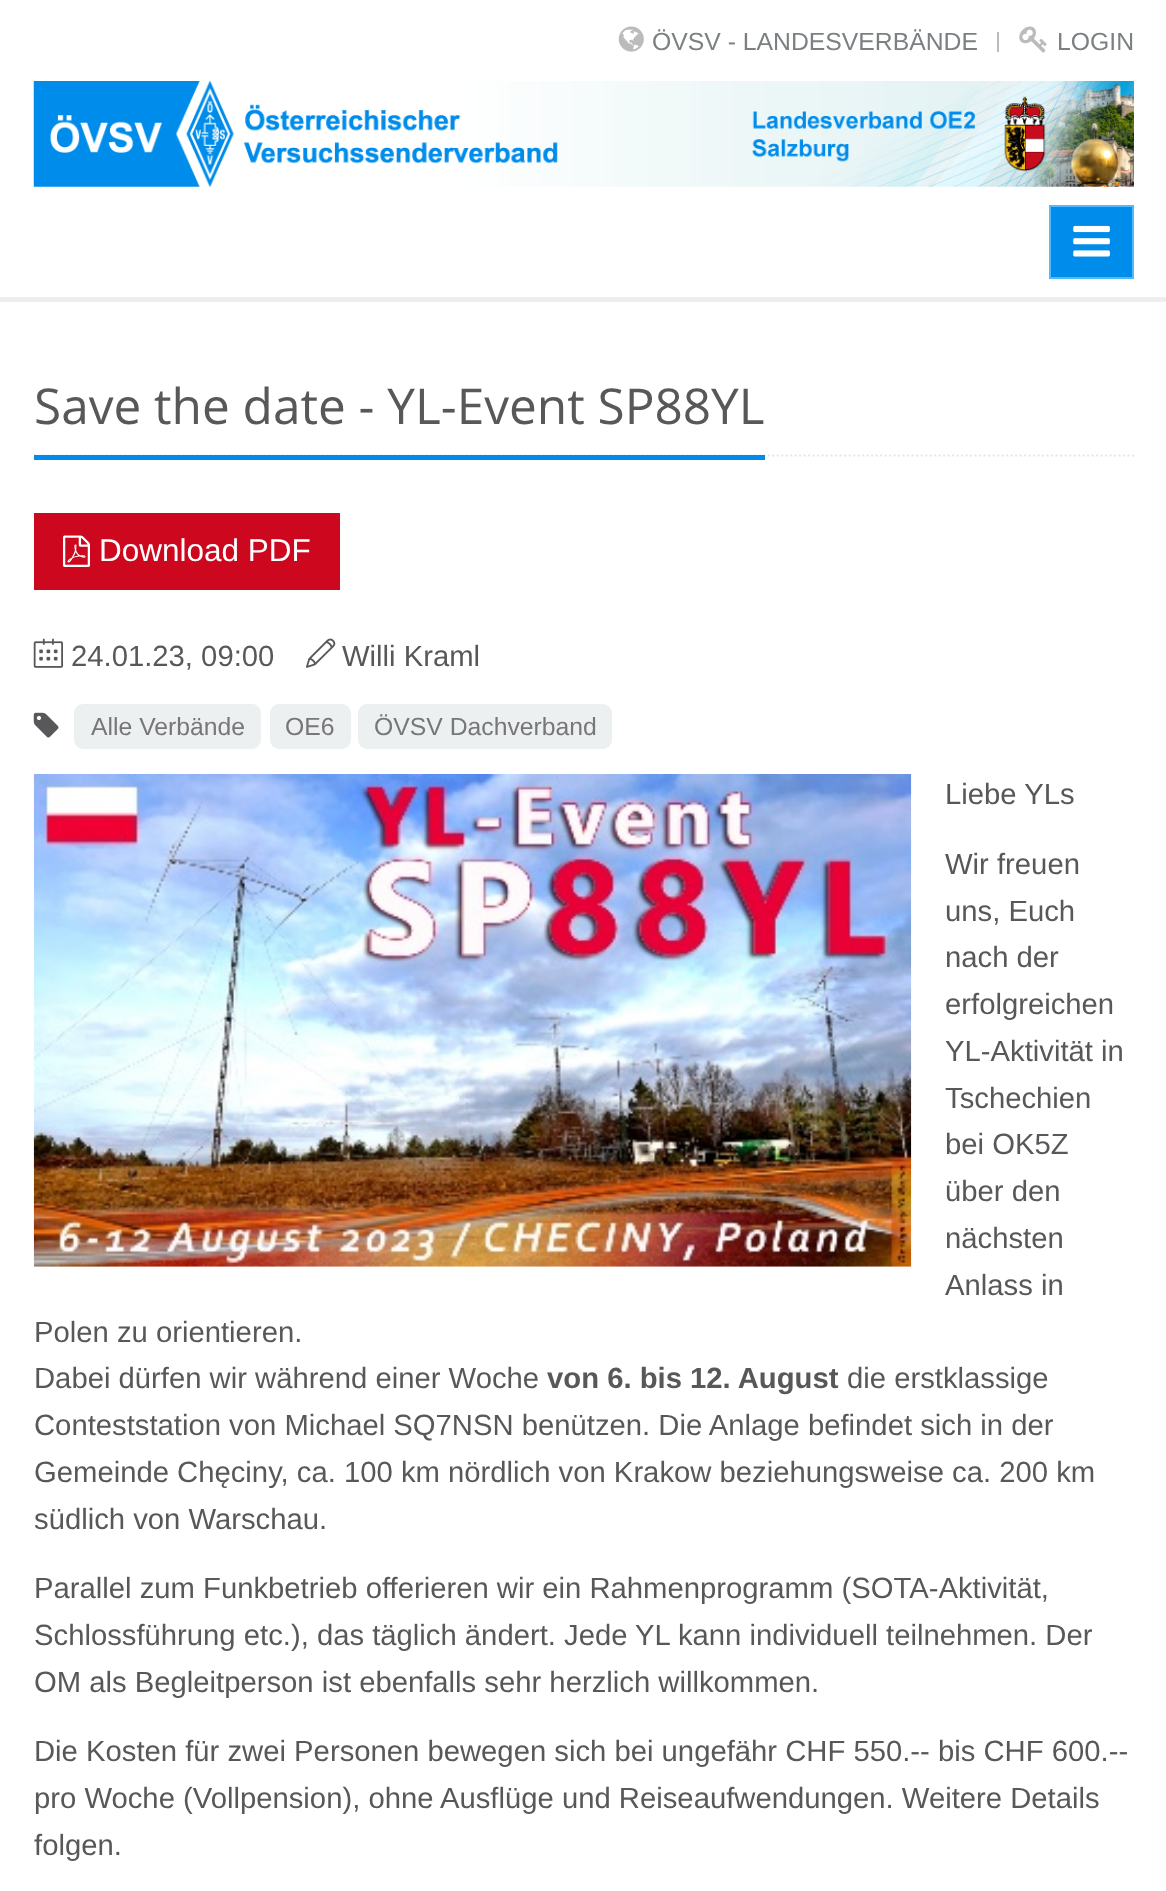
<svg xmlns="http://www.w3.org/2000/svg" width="1166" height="1891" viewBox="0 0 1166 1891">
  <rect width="100%" height="100%" fill="rgb(255,255,255)"/>
  <image x="618" y="26" width="26" height="26" href="pic1.png"/>
  <text x="652" y="50" font-family="Liberation Sans" font-size="24.75" fill="rgb(124,128,130)">ÖVSV - LANDESVERBÄNDE</text>
  <rect x="997" y="32" width="2" height="20" fill="rgb(187,187,187)"/>
  <image x="1019" y="26" width="28" height="27" href="pic2.png"/>
  <text x="1057" y="50" font-family="Liberation Sans" font-size="24.75" fill="rgb(124,128,130)">LOGIN</text>
  <image x="33" y="81" width="1101" height="106" href="pic3.png"/>
  <rect x="0" y="297" width="1166" height="5" fill="rgb(238,238,238)"/>
  <rect x="1050" y="206" width="83" height="72" fill="rgb(0,140,234)" stroke="rgb(81,185,255)" stroke-width="2"/>
  <image x="1073" y="225" width="37" height="32" href="pic4.png"/>
  <path d="M34 455.5H1134" fill="none" stroke="rgb(228,233,240)" stroke-width="2.2" stroke-dasharray="2.25 2.25"/>
  <rect x="34" y="455" width="731" height="5" fill="rgb(0,140,234)"/>
  <text x="34" y="424" font-family="Open Sans" font-size="49.5" fill="rgb(88,88,90)">Save the date - YL-Event SP88YL</text>
  <rect x="34" y="513" width="306" height="77" fill="rgb(204,7,30)"/>
  <image x="63" y="535" width="27" height="32" href="pic5.png"/>
  <text x="99" y="561" font-family="Liberation Sans" font-size="31.5" fill="rgb(255,255,255)">Download PDF</text>
  <image x="33" y="638" width="30" height="30" href="pic6.png"/>
  <text x="71" y="666" font-family="Liberation Sans" font-size="29.25" fill="rgb(88,88,90)">24.01.23, 09:00</text>
  <image x="306" y="638" width="30" height="30" href="pic7.png"/>
  <text x="342" y="666" font-family="Liberation Sans" font-size="29.25" fill="rgb(88,88,90)">Willi Kraml</text>
  <image x="33" y="712" width="26" height="26" href="pic8.png"/>
  <rect x="74" y="704" width="187" height="45" rx="9" fill="rgb(236,240,241)"/>
  <text x="91" y="735" font-family="Liberation Sans" font-size="24.75" fill="rgb(119,119,119)">Alle Verbände</text>
  <rect x="270" y="704" width="81" height="45" rx="9" fill="rgb(236,240,241)"/>
  <text x="285" y="735" font-family="Liberation Sans" font-size="24.75" fill="rgb(119,119,119)">OE6</text>
  <rect x="358" y="704" width="254" height="45" rx="9" fill="rgb(236,240,241)"/>
  <text x="374" y="735" font-family="Liberation Sans" font-size="24.75" fill="rgb(119,119,119)">ÖVSV Dachverband</text>
  <image x="33" y="774" width="879" height="493" href="pic9.png"/>
  <g font-family="Liberation Sans" font-size="29.25" fill="rgb(88,88,90)">
    <text x="945" y="804">Liebe YLs</text>
    <text>
      <tspan x="945" y="874">Wir freuen</tspan>
      <tspan x="945" y="921">uns, Euch</tspan>
      <tspan x="945" y="967">nach der</tspan>
      <tspan x="945" y="1014">erfolgreichen</tspan>
      <tspan x="945" y="1061">YL-Aktivität in</tspan>
      <tspan x="945" y="1108">Tschechien</tspan>
      <tspan x="945" y="1154">bei OK5Z</tspan>
      <tspan x="945" y="1201">über den</tspan>
      <tspan x="945" y="1248">nächsten</tspan>
      <tspan x="945" y="1295">Anlass in</tspan>
    </text>
    <text>
      <tspan x="34" y="1342">Polen zu orientieren.</tspan>
      <tspan x="34" y="1388">Dabei dürfen wir während einer Woche</tspan>
    </text>
  </g>
  <text x="547" y="1388" font-family="Liberation Sans" font-size="29.25" font-weight="bold" fill="rgb(88,88,90)">von 6. bis 12. August</text>
  <g font-family="Liberation Sans" font-size="29.25" fill="rgb(88,88,90)">
    <text x="847" y="1388">die erstklassige</text>
    <text>
      <tspan x="34" y="1435">Conteststation von Michael SQ7NSN benützen. Die Anlage befindet sich in der</tspan>
      <tspan x="34" y="1482">Gemeinde Chęciny, ca. 100 km nördlich von Krakow beziehungsweise ca. 200 km</tspan>
      <tspan x="34" y="1529">südlich von Warschau.</tspan>
    </text>
    <text>
      <tspan x="34" y="1598">Parallel zum Funkbetrieb offerieren wir ein Rahmenprogramm (SOTA-Aktivität,</tspan>
      <tspan x="34" y="1645">Schlossführung etc.), das täglich ändert. Jede YL kann individuell teilnehmen. Der</tspan>
      <tspan x="34" y="1692">OM als Begleitperson ist ebenfalls sehr herzlich willkommen.</tspan>
    </text>
    <text>
      <tspan x="34" y="1761">Die Kosten für zwei Personen bewegen sich bei ungefähr CHF 550.-- bis CHF 600.--</tspan>
      <tspan x="34" y="1808">pro Woche (Vollpension), ohne Ausflüge und Reiseaufwendungen. Weitere Details</tspan>
      <tspan x="34" y="1855">folgen.</tspan>
    </text>
  </g>
</svg>
